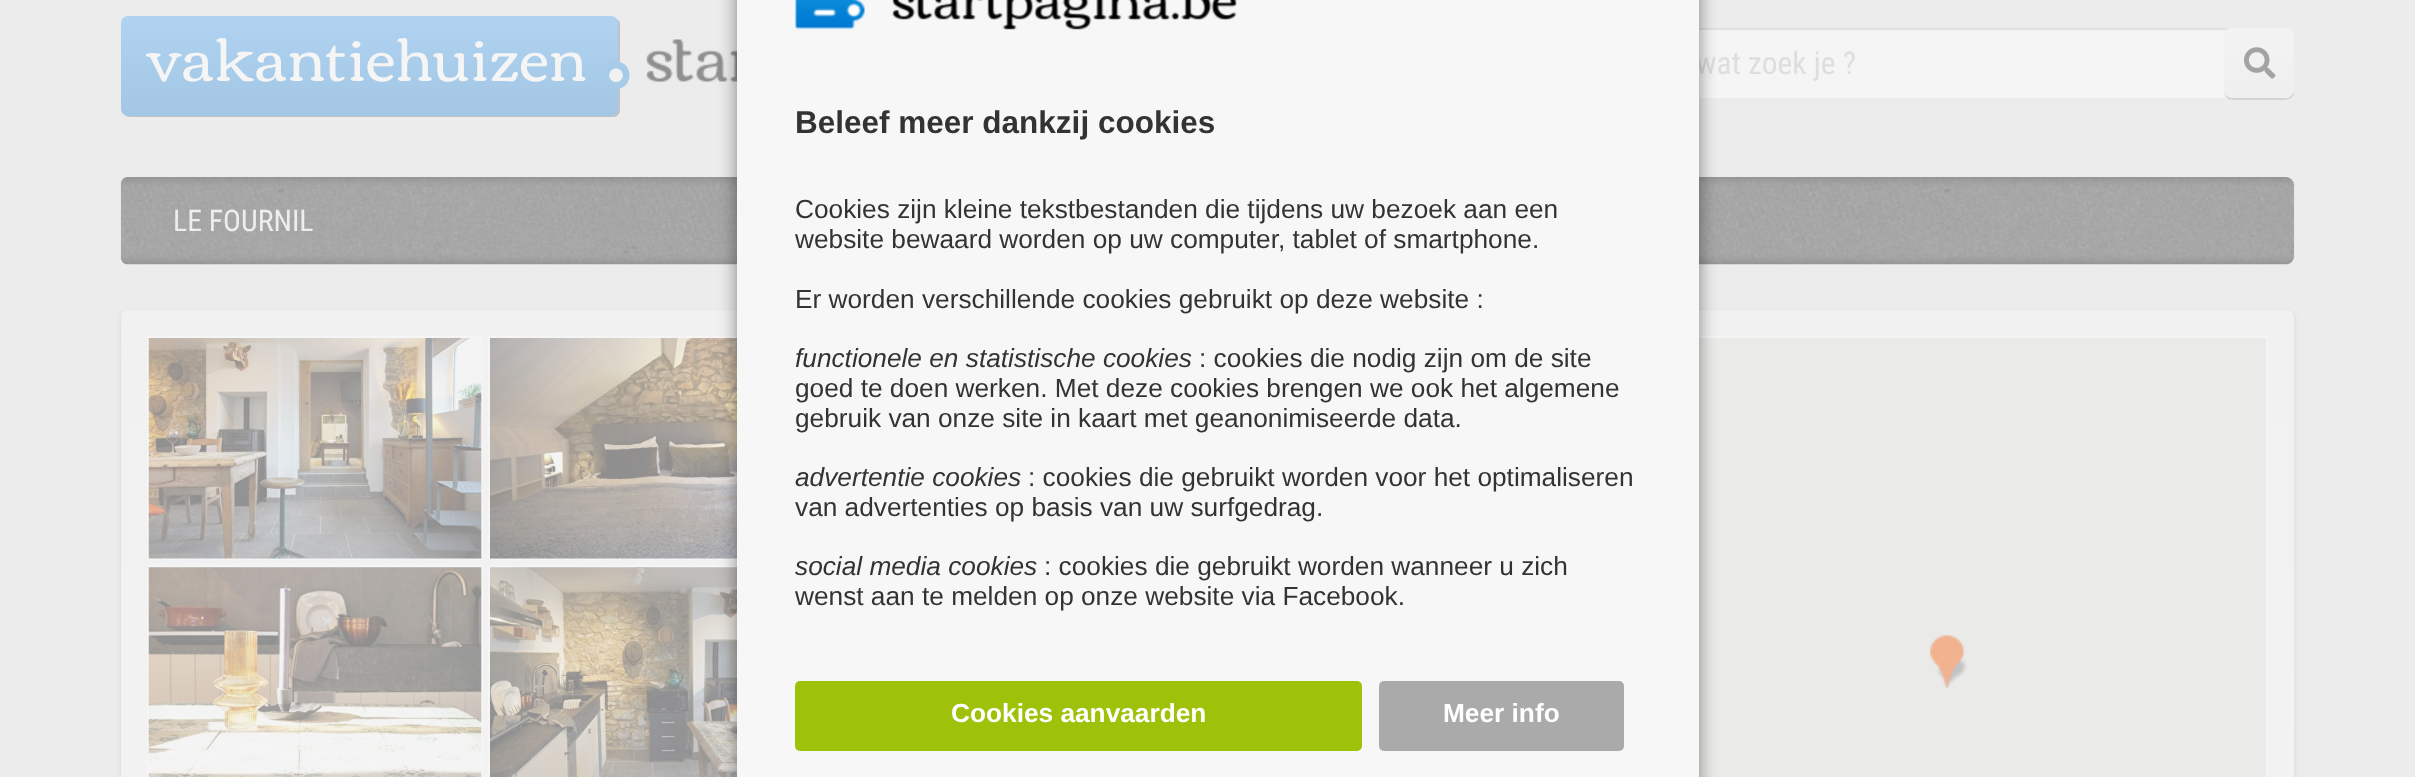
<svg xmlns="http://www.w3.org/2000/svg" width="2415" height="777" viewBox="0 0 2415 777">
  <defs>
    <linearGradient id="g1" gradientUnits="userSpaceOnUse" x1="369" y1="16" x2="369" y2="116"><stop offset="0" stop-color="rgb(175,211,240)"/><stop offset="1" stop-color="rgb(162,198,228)"/></linearGradient>
    <linearGradient id="g2" gradientUnits="userSpaceOnUse" x1="2259" y1="28" x2="2259" y2="98"><stop offset="0" stop-color="rgb(243,243,243)"/><stop offset="1" stop-color="rgb(239,239,239)"/></linearGradient>
    <linearGradient id="g3" gradientUnits="userSpaceOnUse" x1="1208" y1="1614" x2="1208" y2="310"><stop offset="0" stop-color="rgb(245,245,245)"/><stop offset="1" stop-color="rgb(241,241,241)"/></linearGradient>
  </defs>
  <rect width="100%" height="100%" fill="rgb(236,236,236)"/>
  <path d="M125 115C126 116 128 117 130 117H613C617 117 620 114 620 110V25C620 22 619 20 617 19C617 20 618 21 618 23V108C618 112 615 116 611 116H128Z" fill="rgb(194,194,194)"/>
  <rect x="121" y="16" width="497" height="100" rx="7" fill="url(#g1)"/>
  <text x="147" y="81" font-family="Corben" font-size="59.5" fill="rgb(245,245,245)">vakantiehuizen</text>
  <path d="M616 61.5C598 61.5 598 89 616 89C634 89 634 61.5 616 61.5Z" fill="rgb(167,204,233)"/>
  <image x="609" y="68" width="14" height="14" href="pic1.png"/>
  <image x="646" y="39" width="91" height="44" href="pic2.png"/>
  <rect x="1685" y="28" width="546" height="70" rx="7" fill="rgb(245,245,245)"/>
  <path d="M2228.5 30.5C2229.5 32 2230.5 33.5 2230.5 35V91C2230.5 92.5 2229.5 94 2228.5 95.5C2227.5 96.5 2226 97 2224 97H1692C1690.5 97 1689 96.5 1688 95.5" fill="none" stroke="rgb(245,245,245)" stroke-width="1.8"/>
  <path d="M1688 95.5C1687 94 1686 92.5 1686 91V35C1686 33.5 1687 32 1688 30.5C1689 29.5 1690.5 29 1692 29H2224C2226 29 2227.5 29.5 2228.5 30.5" fill="none" stroke="rgb(224,224,224)" stroke-width="1.8"/>
  <text x="1696" y="74" font-family="Roboto Condensed" font-size="31.5" fill="rgb(222,222,222)">wat zoek je ?</text>
  <path d="M2224 37V74C2224 102 2222 100 2250 100H2276C2283 100 2294 101 2294 91C2293 95 2290 98 2286 98H2233C2228 98 2224 94 2224 89Z" fill="rgba(143,143,143,0.27)"/>
  <rect x="2224" y="28" width="70" height="70" rx="9" fill="url(#g2)"/>
  <image x="2243" y="47" width="33" height="32" href="pic3.png"/>
  <image x="120" y="177" width="2175" height="88" href="pic4.png"/>
  <text x="173" y="231" font-family="Roboto Condensed" font-size="29.75" fill="rgb(238,238,238)">LE FOURNIL</text>
  <rect x="121" y="312" width="2173" height="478" rx="7" fill="rgba(143,143,143,0.27)" filter="blur(2px)"/>
  <rect x="121" y="310" width="2173" height="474" rx="7" fill="url(#g3)"/>
  <rect x="489" y="337" width="334" height="222" fill="none" stroke="rgb(245,245,245)" stroke-width="2"/>
  <image x="490" y="338" width="247" height="221" href="pic8.png"/>
  <rect x="489" y="566" width="334" height="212" fill="none" stroke="rgb(245,245,245)" stroke-width="2"/>
  <image x="490" y="567" width="247" height="210" href="pic10.png"/>
  <rect x="1627" y="337" width="640" height="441" fill="none" stroke="rgb(245,245,245)" stroke-width="2"/>
  <rect x="1699" y="338" width="567" height="439" fill="rgb(234,234,232)"/>
  <rect x="737" y="-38" width="962" height="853" rx="11" fill="rgba(0,0,0,0.45)" filter="blur(9px)"/>
  <rect x="737" y="0" width="962" height="777" fill="rgb(247,247,247)"/>
  <image x="795" y="0" width="70" height="30" href="pic5.png"/>
  <image x="892" y="0" width="345" height="30" href="pic6.png"/>
  <text x="795" y="133" font-family="Liberation Sans" font-size="31.5" font-weight="bold" fill="rgb(51,51,51)">Beleef meer dankzij cookies</text>
  <g font-family="Liberation Sans" font-size="26.25" fill="rgb(51,51,51)">
    <text>
      <tspan x="795" y="218">Cookies zijn kleine tekstbestanden die tijdens uw bezoek aan een</tspan>
      <tspan x="795" y="248">website bewaard worden op uw computer, tablet of smartphone.</tspan>
    </text>
    <text x="795" y="308">Er worden verschillende cookies gebruikt op deze website :</text>
  </g>
  <text x="795" y="367" font-family="Liberation Sans" font-size="26.25" font-style="italic" fill="rgb(51,51,51)">functionele en statistische cookies</text>
  <g font-family="Liberation Sans" font-size="26.25" fill="rgb(51,51,51)">
    <text x="1199" y="367">: cookies die nodig zijn om de site</text>
    <text>
      <tspan x="795" y="397">goed te doen werken. Met deze cookies brengen we ook het algemene</tspan>
      <tspan x="795" y="427">gebruik van onze site in kaart met geanonimiseerde data.</tspan>
    </text>
  </g>
  <text x="795" y="486" font-family="Liberation Sans" font-size="26.25" font-style="italic" fill="rgb(51,51,51)">advertentie cookies</text>
  <g font-family="Liberation Sans" font-size="26.25" fill="rgb(51,51,51)">
    <text x="1028" y="486">: cookies die gebruikt worden voor het optimaliseren</text>
    <text x="795" y="516">van advertenties op basis van uw surfgedrag.</text>
  </g>
  <text x="795" y="575" font-family="Liberation Sans" font-size="26.25" font-style="italic" fill="rgb(51,51,51)">social media cookies</text>
  <g font-family="Liberation Sans" font-size="26.25" fill="rgb(51,51,51)">
    <text x="1044" y="575">: cookies die gebruikt worden wanneer u zich</text>
    <text x="795" y="605">wenst aan te melden op onze website via Facebook.</text>
  </g>
  <rect x="795" y="681" width="567" height="70" rx="5" fill="rgb(157,194,9)"/>
  <text x="951" y="722" font-family="Liberation Sans" font-size="26.25" font-weight="bold" fill="rgb(255,255,255)">Cookies aanvaarden</text>
  <rect x="1379" y="681" width="245" height="70" rx="5" fill="rgb(170,170,170)"/>
  <text x="1443" y="722" font-family="Liberation Sans" font-size="26.25" font-weight="bold" fill="rgb(255,255,255)">Meer info</text>
  <rect x="148" y="337" width="334" height="222" fill="none" stroke="rgb(245,245,245)" stroke-width="2"/>
  <image x="148" y="338" width="334" height="221" href="pic7.png"/>
  <rect x="148" y="566" width="334" height="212" fill="none" stroke="rgb(245,245,245)" stroke-width="2"/>
  <image x="148" y="567" width="334" height="210" href="pic9.png"/>
  <image x="1930" y="635" width="38" height="53" href="pic11.png"/>
</svg>
